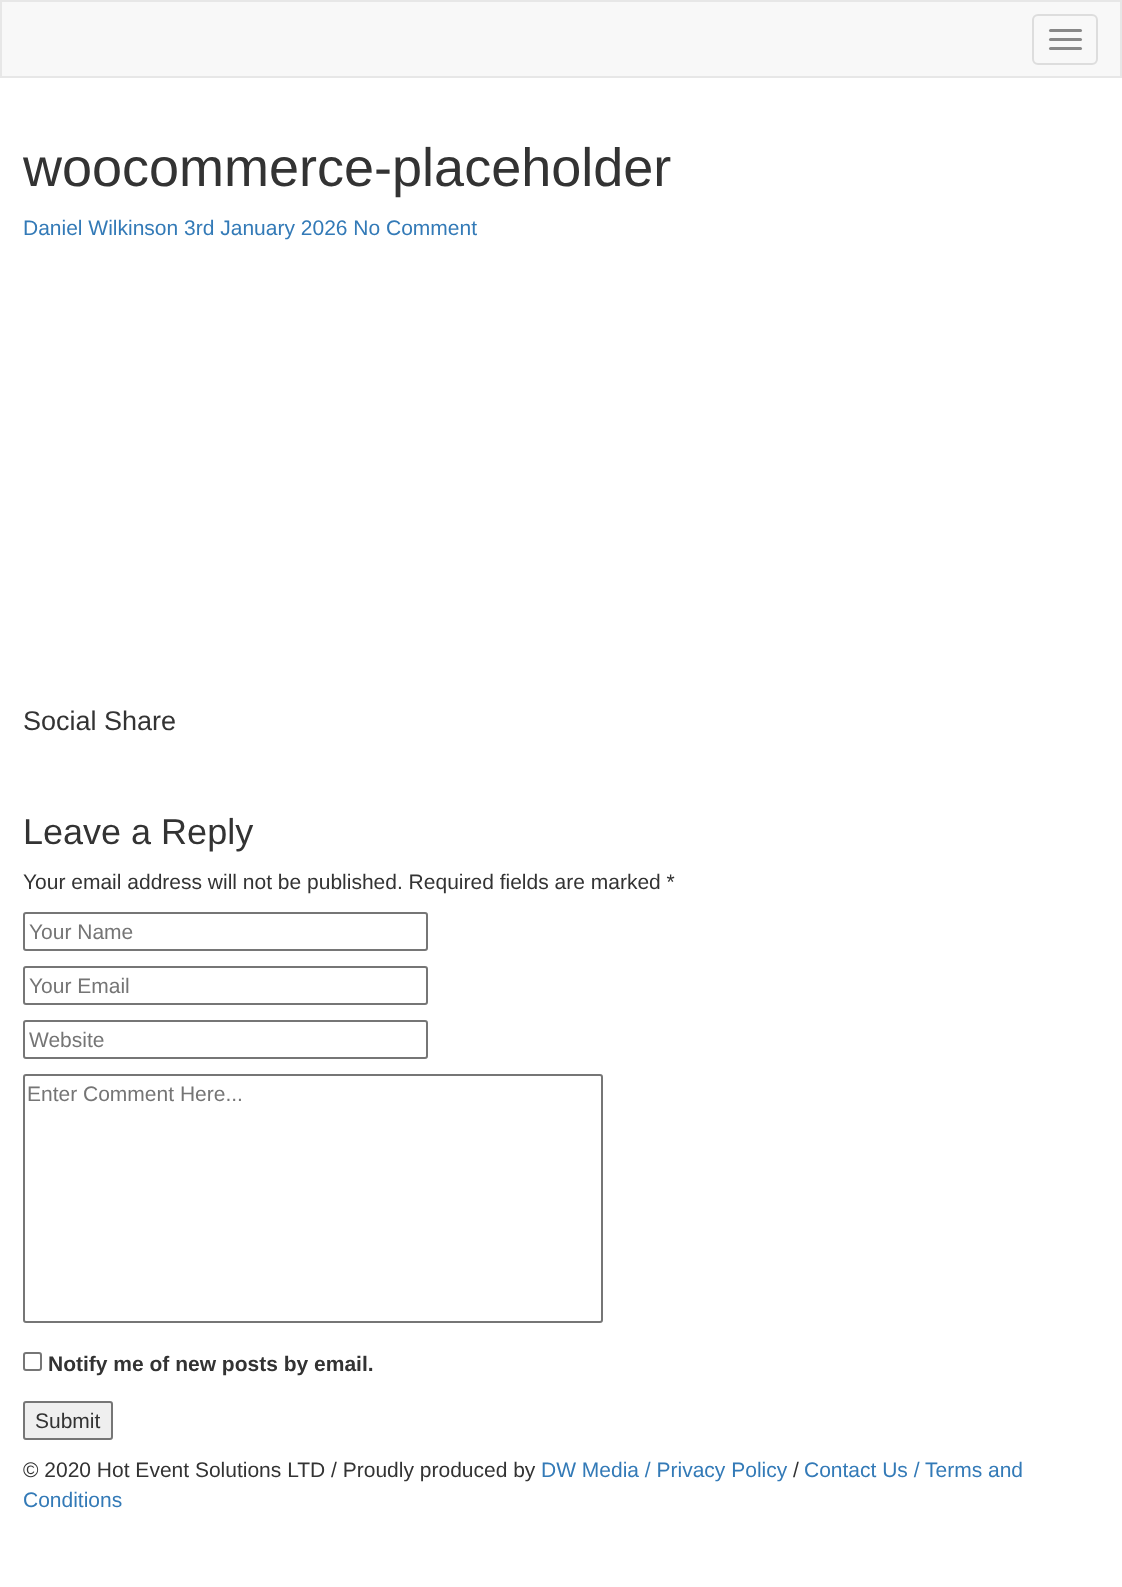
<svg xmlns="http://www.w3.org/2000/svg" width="1122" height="1587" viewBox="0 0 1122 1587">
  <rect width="100%" height="100%" fill="rgb(255,255,255)"/>
  <rect x="1" y="1" width="1120" height="76" fill="rgb(248,248,248)" stroke="rgb(231,231,231)" stroke-width="2"/>
  <rect x="1033" y="15" width="64" height="49" rx="5" fill="none" stroke="rgb(221,221,221)" stroke-width="2"/>
  <rect x="1049" y="29" width="33" height="3" rx="1.5" fill="rgb(136,136,136)"/>
  <rect x="1049" y="38" width="33" height="3" rx="1.5" fill="rgb(136,136,136)"/>
  <rect x="1049" y="47" width="33" height="3" rx="1.5" fill="rgb(136,136,136)"/>
  <text x="23" y="186" font-family="Liberation Sans" font-size="54" fill="rgb(51,51,51)">woocommerce-placeholder</text>
  <text x="23" y="235" font-family="Liberation Sans" font-size="21" fill="rgb(51,122,183)">Daniel Wilkinson 3rd January 2026 No Comment</text>
  <text x="23" y="730" font-family="Liberation Sans" font-size="27" fill="rgb(51,51,51)">Social Share</text>
  <text x="23" y="844" font-family="Liberation Sans" font-size="36" fill="rgb(51,51,51)">Leave a Reply</text>
  <text x="23" y="889" font-family="Liberation Sans" font-size="21" fill="rgb(51,51,51)">Your email address will not be published. Required fields are marked *</text>
  <rect x="24" y="913" width="403" height="37" rx="2" fill="none" stroke="rgb(118,118,118)" stroke-width="2"/>
  <text x="29" y="939" font-family="Liberation Sans" font-size="21" fill="rgb(117,117,117)">Your Name</text>
  <rect x="24" y="967" width="403" height="37" rx="2" fill="none" stroke="rgb(118,118,118)" stroke-width="2"/>
  <text x="29" y="993" font-family="Liberation Sans" font-size="21" fill="rgb(117,117,117)">Your Email</text>
  <rect x="24" y="1021" width="403" height="37" rx="2" fill="none" stroke="rgb(118,118,118)" stroke-width="2"/>
  <text x="29" y="1047" font-family="Liberation Sans" font-size="21" fill="rgb(117,117,117)">Website</text>
  <rect x="24" y="1075" width="578" height="247" rx="2" fill="none" stroke="rgb(118,118,118)" stroke-width="2"/>
  <text x="27" y="1101" font-family="Liberation Sans" font-size="21" fill="rgb(117,117,117)">Enter Comment Here...</text>
  <rect x="24" y="1353" width="17" height="17" rx="2" fill="none" stroke="rgb(118,118,118)" stroke-width="2"/>
  <text x="48" y="1371" font-family="Liberation Sans" font-size="21" font-weight="bold" fill="rgb(51,51,51)">Notify me of new posts by email.</text>
  <rect x="24" y="1402" width="88" height="37" rx="2" fill="rgb(239,239,239)" stroke="rgb(118,118,118)" stroke-width="2"/>
  <g font-family="Liberation Sans" font-size="21" fill="rgb(51,51,51)">
    <text x="35" y="1428">Submit</text>
    <text x="23" y="1477">© 2020 Hot Event Solutions LTD / Proudly produced by</text>
  </g>
  <text x="541" y="1477" font-family="Liberation Sans" font-size="21" fill="rgb(51,122,183)">DW Media / Privacy Policy</text>
  <text x="793" y="1477" font-family="Liberation Sans" font-size="21" fill="rgb(51,51,51)">/</text>
  <g font-family="Liberation Sans" font-size="21" fill="rgb(51,122,183)">
    <text x="804" y="1477">Contact Us /</text>
    <text x="925" y="1477">Terms and</text>
    <text x="23" y="1507">Conditions</text>
  </g>
</svg>
